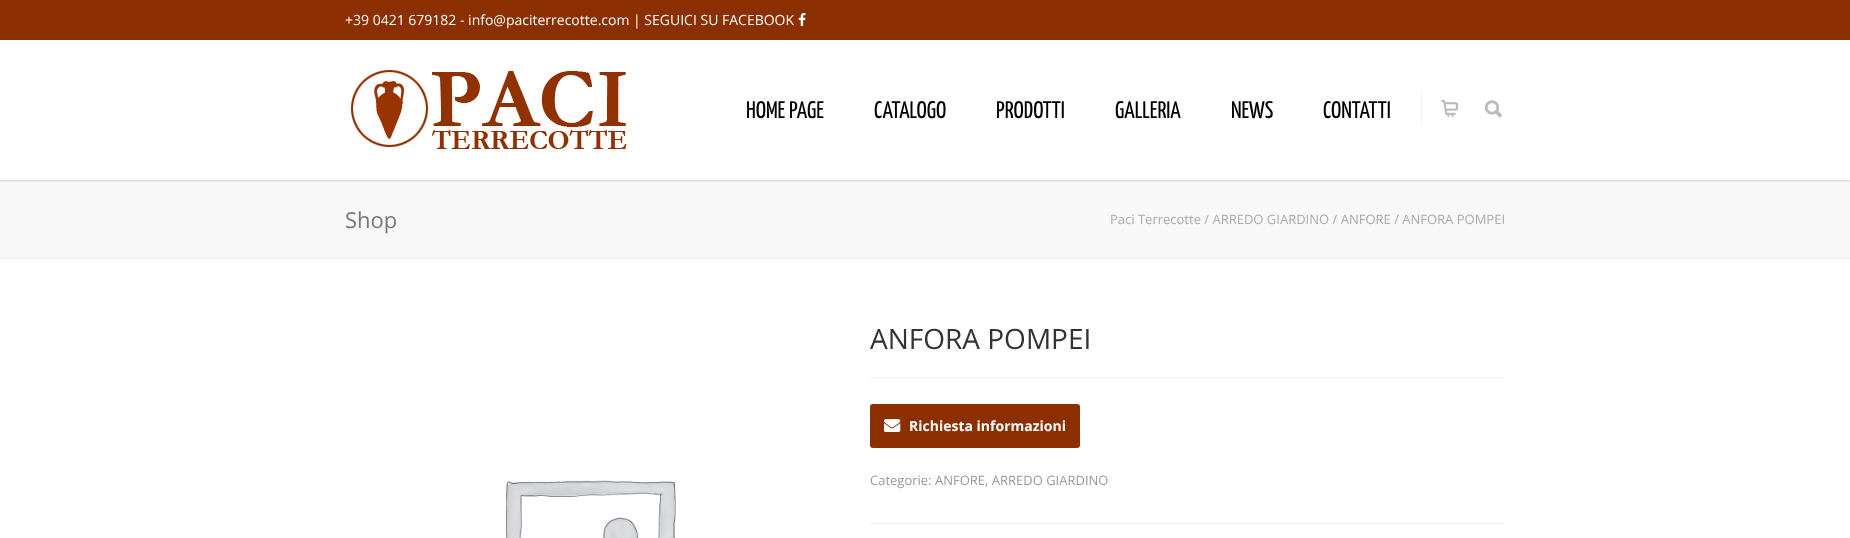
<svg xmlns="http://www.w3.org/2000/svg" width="1850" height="538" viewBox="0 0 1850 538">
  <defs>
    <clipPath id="clip1"><rect x="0" y="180" width="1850" height="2"/></clipPath>
  </defs>
  <rect width="100%" height="100%" fill="rgb(255,255,255)"/>
  <rect x="0" y="180" width="1850" height="78" fill="rgb(249,249,249)"/>
  <g clip-path="url(#clip1)">
    <rect x="-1" y="39" width="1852" height="142" fill="rgba(0,0,0,0.16)" filter="blur(1px)"/>
  </g>
  <rect x="0" y="0" width="1850" height="40" fill="rgb(139,46,0)"/>
  <text x="345" y="25" font-family="Open Sans" font-size="14" fill="rgb(255,255,255)">+39 0421 679182 - info@paciterrecotte.com | SEGUICI SU FACEBOOK</text>
  <image x="798" y="13" width="8" height="13" href="pic1.png"/>
  <image x="351" y="70" width="276" height="79" href="pic2.png"/>
  <g font-family="Yanone Kaffeesatz" font-size="24" font-weight="200" fill="rgb(0,0,0)">
    <text x="746" y="118">HOME PAGE</text>
    <text x="874" y="118">CATALOGO</text>
    <text x="996" y="118">PRODOTTI</text>
    <text x="1115" y="118">GALLERIA</text>
    <text x="1231" y="118">NEWS</text>
    <text x="1323" y="118">CONTATTI</text>
  </g>
  <rect x="1421" y="93" width="1" height="30" fill="rgb(239,239,239)"/>
  <image x="1441" y="100" width="17" height="17" href="pic3.png"/>
  <image x="1484" y="100" width="18" height="18" href="pic4.png"/>
  <rect x="0" y="258" width="1850" height="1" fill="rgb(239,239,239)"/>
  <text x="345" y="228" font-family="Open Sans" font-size="22" fill="rgb(119,119,119)">Shop</text>
  <text x="1110" y="224" font-family="Open Sans" font-size="13" fill="rgb(170,170,170)">Paci Terrecotte / ARREDO GIARDINO / ANFORE / ANFORA POMPEI</text>
  <text x="870" y="349" font-family="Open Sans" font-size="28" fill="rgb(51,51,51)">ANFORA POMPEI</text>
  <rect x="870" y="377" width="635" height="1" fill="rgb(239,239,239)"/>
  <rect x="870" y="404" width="210" height="44" rx="3" fill="rgb(139,46,0)"/>
  <image x="884" y="419" width="17" height="13" href="pic5.png"/>
  <text x="909" y="431" font-family="Open Sans" font-size="14" font-weight="bold" fill="rgb(255,255,255)">Richiesta informazioni</text>
  <text x="870" y="485" font-family="Open Sans" font-size="13" fill="rgb(153,153,153)">Categorie: ANFORE, ARREDO GIARDINO</text>
  <image x="505" y="480" width="171" height="58" href="pic6.png"/>
  <rect x="870" y="523" width="635" height="1" fill="rgb(239,239,239)"/>
</svg>
